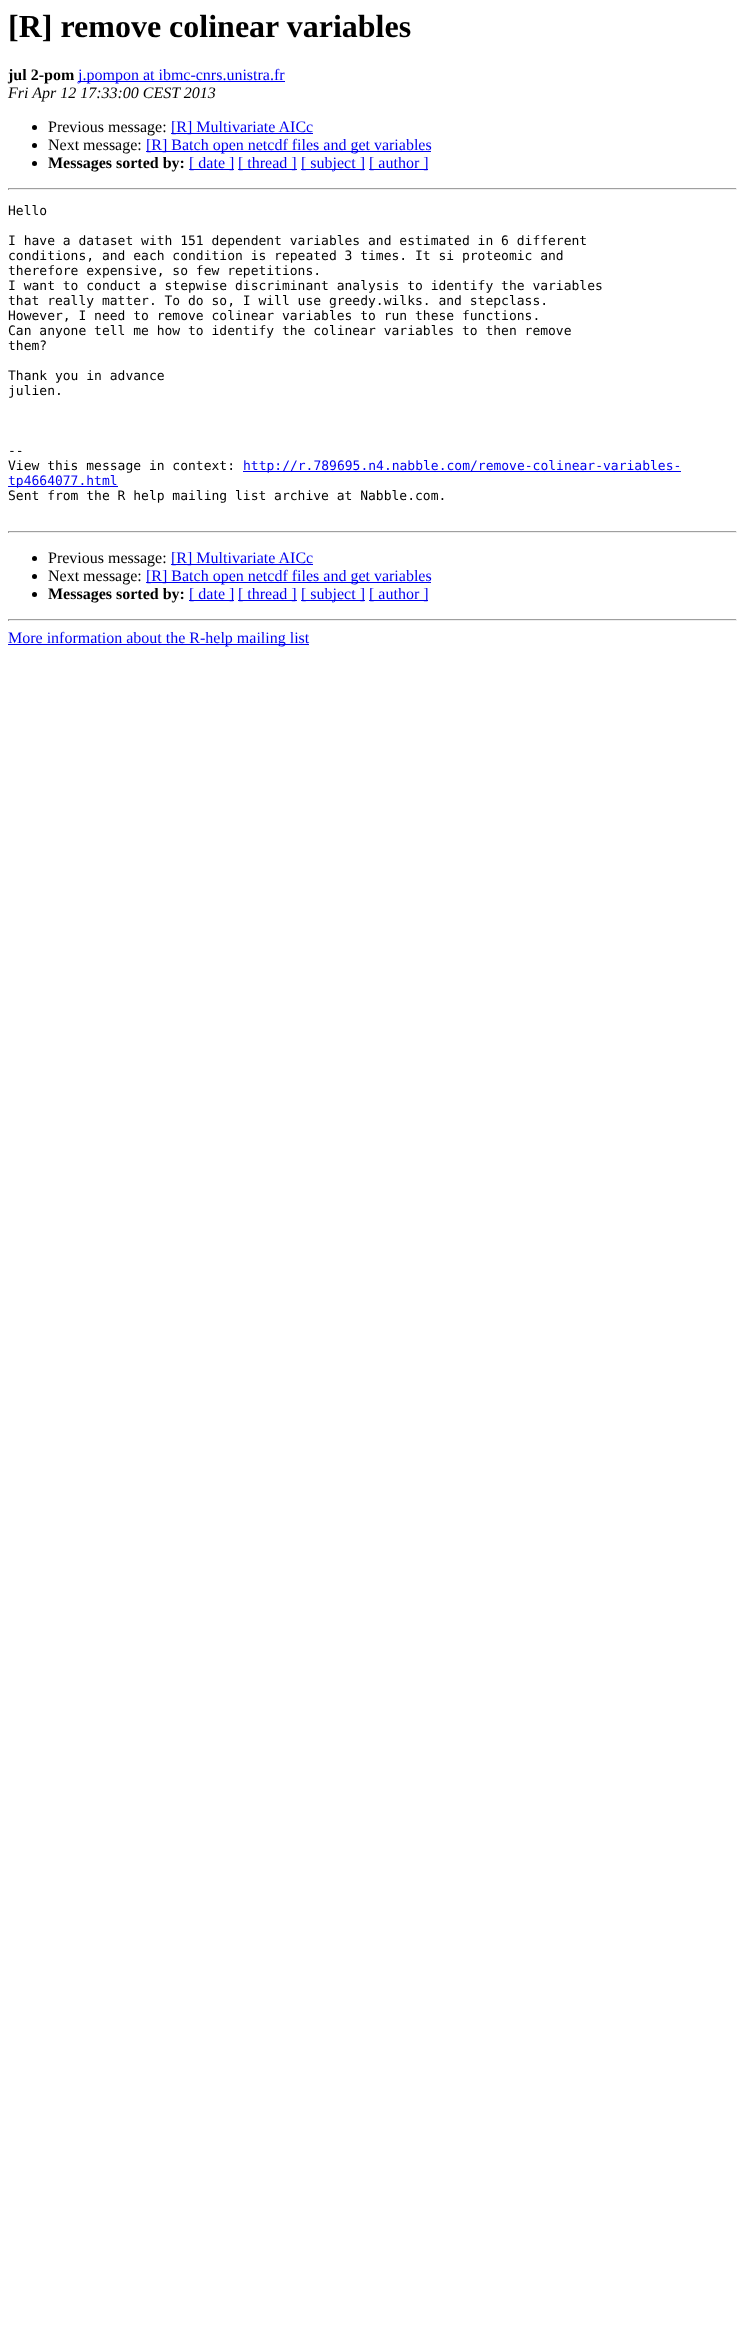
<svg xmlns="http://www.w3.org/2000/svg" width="745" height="2330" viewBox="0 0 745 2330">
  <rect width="100%" height="100%" fill="rgb(255,255,255)"/>
  <text x="8" y="37" font-family="Liberation Serif" font-size="32" font-weight="bold" fill="rgb(0,0,0)">[R] remove colinear variables</text>
  <text x="8" y="80" font-family="Liberation Serif" font-size="16" font-weight="bold" fill="rgb(0,0,0)">jul 2-pom</text>
  <rect x="78" y="81" width="207" height="1" fill="rgb(0,0,238)"/>
  <text x="78" y="80" font-family="Liberation Serif" font-size="16" fill="rgb(0,0,238)">j.pompon at ibmc-cnrs.unistra.fr</text>
  <text x="8" y="98" font-family="Liberation Serif" font-size="16" font-style="italic" fill="rgb(0,0,0)">Fri Apr 12 17:33:00 CEST 2013</text>
  <circle cx="34.5" cy="127.5" r="2.5" fill="rgb(0,0,0)"/>
  <text x="48" y="132" font-family="Liberation Serif" font-size="16" fill="rgb(0,0,0)">Previous message:</text>
  <rect x="171" y="133" width="142" height="1" fill="rgb(0,0,238)"/>
  <text x="171" y="132" font-family="Liberation Serif" font-size="16" fill="rgb(0,0,238)">[R] Multivariate AICc</text>
  <circle cx="34.5" cy="145.5" r="2.5" fill="rgb(0,0,0)"/>
  <text x="48" y="150" font-family="Liberation Serif" font-size="16" fill="rgb(0,0,0)">Next message:</text>
  <rect x="146" y="151" width="285" height="1" fill="rgb(0,0,238)"/>
  <text x="146" y="150" font-family="Liberation Serif" font-size="16" fill="rgb(0,0,238)">[R] Batch open netcdf files and get variables</text>
  <circle cx="34.5" cy="163.5" r="2.5" fill="rgb(0,0,0)"/>
  <text x="48" y="168" font-family="Liberation Serif" font-size="16" font-weight="bold" fill="rgb(0,0,0)">Messages sorted by:</text>
  <rect x="189" y="169" width="45" height="1" fill="rgb(0,0,238)"/>
  <text x="189" y="168" font-family="Liberation Serif" font-size="16" fill="rgb(0,0,238)">[ date ]</text>
  <rect x="238" y="169" width="59" height="1" fill="rgb(0,0,238)"/>
  <text x="238" y="168" font-family="Liberation Serif" font-size="16" fill="rgb(0,0,238)">[ thread ]</text>
  <rect x="301" y="169" width="64" height="1" fill="rgb(0,0,238)"/>
  <text x="301" y="168" font-family="Liberation Serif" font-size="16" fill="rgb(0,0,238)">[ subject ]</text>
  <rect x="369" y="169" width="59" height="1" fill="rgb(0,0,238)"/>
  <text x="369" y="168" font-family="Liberation Serif" font-size="16" fill="rgb(0,0,238)">[ author ]</text>
  <rect x="8" y="188" width="729" height="1" fill="rgb(159,159,159)"/>
  <rect x="736" y="188" width="1" height="2" fill="rgb(238,238,238)"/>
  <rect x="8" y="189" width="729" height="1" fill="rgb(238,238,238)"/>
  <rect x="8" y="188" width="1" height="2" fill="rgb(159,159,159)"/>
  <g font-family="DejaVu Sans Mono" font-size="13" fill="rgb(0,0,0)">
    <text x="8" y="215">Hello</text>
    <text>
      <tspan x="8" y="245">I have a dataset with 151 dependent variables and estimated in 6 different</tspan>
      <tspan x="8" y="260">conditions, and each condition is repeated 3 times. It si proteomic and</tspan>
      <tspan x="8" y="275">therefore expensive, so few repetitions.</tspan>
      <tspan x="8" y="290">I want to conduct a stepwise discriminant analysis to identify the variables</tspan>
      <tspan x="8" y="305">that really matter. To do so, I will use greedy.wilks. and stepclass.</tspan>
      <tspan x="8" y="320">However, I need to remove colinear variables to run these functions.</tspan>
      <tspan x="8" y="335">Can anyone tell me how to identify the colinear variables to then remove</tspan>
      <tspan x="8" y="350">them?</tspan>
    </text>
    <text>
      <tspan x="8" y="380">Thank you in advance</tspan>
      <tspan x="8" y="395">julien.</tspan>
    </text>
    <text>
      <tspan x="8" y="455">--</tspan>
      <tspan x="8" y="470">View this message in context:</tspan>
    </text>
  </g>
  <rect x="243" y="471" width="438" height="1" fill="rgb(0,0,238)"/>
  <text x="243" y="470" font-family="DejaVu Sans Mono" font-size="13" fill="rgb(0,0,238)">http://r.789695.n4.nabble.com/remove-colinear-variables-</text>
  <rect x="8" y="486" width="110" height="1" fill="rgb(0,0,238)"/>
  <text x="8" y="485" font-family="DejaVu Sans Mono" font-size="13" fill="rgb(0,0,238)">tp4664077.html</text>
  <text x="8" y="500" font-family="DejaVu Sans Mono" font-size="13" fill="rgb(0,0,0)">Sent from the R help mailing list archive at Nabble.com.</text>
  <rect x="8" y="531" width="729" height="1" fill="rgb(159,159,159)"/>
  <rect x="736" y="531" width="1" height="2" fill="rgb(238,238,238)"/>
  <rect x="8" y="532" width="729" height="1" fill="rgb(238,238,238)"/>
  <rect x="8" y="531" width="1" height="2" fill="rgb(159,159,159)"/>
  <circle cx="34.5" cy="558.5" r="2.5" fill="rgb(0,0,0)"/>
  <text x="48" y="563" font-family="Liberation Serif" font-size="16" fill="rgb(0,0,0)">Previous message:</text>
  <rect x="171" y="564" width="142" height="1" fill="rgb(0,0,238)"/>
  <text x="171" y="563" font-family="Liberation Serif" font-size="16" fill="rgb(0,0,238)">[R] Multivariate AICc</text>
  <circle cx="34.5" cy="576.5" r="2.5" fill="rgb(0,0,0)"/>
  <text x="48" y="581" font-family="Liberation Serif" font-size="16" fill="rgb(0,0,0)">Next message:</text>
  <rect x="146" y="582" width="285" height="1" fill="rgb(0,0,238)"/>
  <text x="146" y="581" font-family="Liberation Serif" font-size="16" fill="rgb(0,0,238)">[R] Batch open netcdf files and get variables</text>
  <circle cx="34.5" cy="594.5" r="2.5" fill="rgb(0,0,0)"/>
  <text x="48" y="599" font-family="Liberation Serif" font-size="16" font-weight="bold" fill="rgb(0,0,0)">Messages sorted by:</text>
  <rect x="189" y="600" width="45" height="1" fill="rgb(0,0,238)"/>
  <text x="189" y="599" font-family="Liberation Serif" font-size="16" fill="rgb(0,0,238)">[ date ]</text>
  <rect x="238" y="600" width="59" height="1" fill="rgb(0,0,238)"/>
  <text x="238" y="599" font-family="Liberation Serif" font-size="16" fill="rgb(0,0,238)">[ thread ]</text>
  <rect x="301" y="600" width="64" height="1" fill="rgb(0,0,238)"/>
  <text x="301" y="599" font-family="Liberation Serif" font-size="16" fill="rgb(0,0,238)">[ subject ]</text>
  <rect x="369" y="600" width="59" height="1" fill="rgb(0,0,238)"/>
  <text x="369" y="599" font-family="Liberation Serif" font-size="16" fill="rgb(0,0,238)">[ author ]</text>
  <rect x="8" y="619" width="729" height="1" fill="rgb(159,159,159)"/>
  <rect x="736" y="619" width="1" height="2" fill="rgb(238,238,238)"/>
  <rect x="8" y="620" width="729" height="1" fill="rgb(238,238,238)"/>
  <rect x="8" y="619" width="1" height="2" fill="rgb(159,159,159)"/>
  <rect x="8" y="644" width="301" height="1" fill="rgb(0,0,238)"/>
  <text x="8" y="643" font-family="Liberation Serif" font-size="16" fill="rgb(0,0,238)">More information about the R-help mailing list</text>
</svg>
